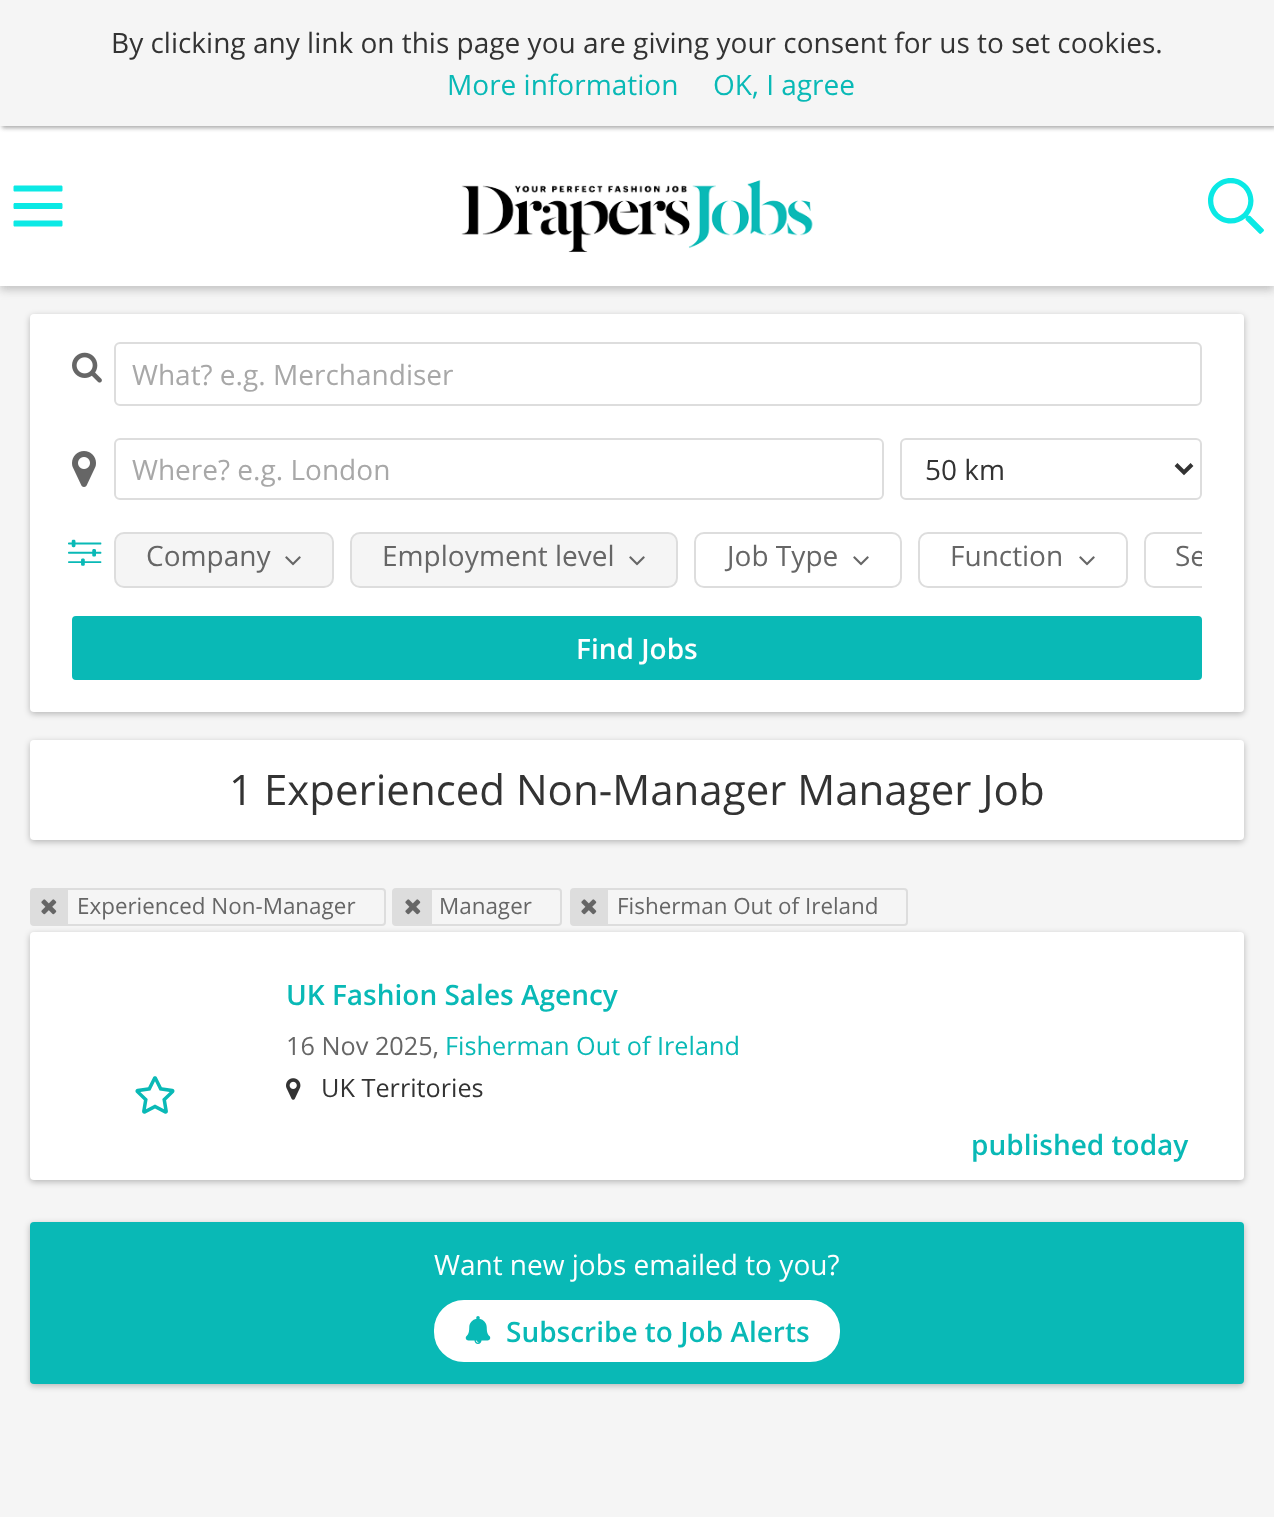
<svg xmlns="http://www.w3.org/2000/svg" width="1274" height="1517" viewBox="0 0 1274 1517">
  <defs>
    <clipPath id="clip1"><rect x="114" y="532" width="1088" height="56"/></clipPath>
  </defs>
  <rect width="100%" height="100%" fill="rgb(245,245,245)"/>
  <rect x="0" y="130" width="1274" height="160" fill="rgba(145,145,145,0.5)" filter="blur(4px)"/>
  <rect x="0" y="126" width="1274" height="160" fill="rgb(255,255,255)"/>
  <rect x="2" y="2" width="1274" height="126" fill="rgb(168,168,168)" filter="blur(2px)"/>
  <rect x="0" y="0" width="1274" height="126" fill="rgb(245,245,245)"/>
  <text x="111" y="53" font-family="Open Sans" font-size="28" fill="rgb(51,51,51)">By clicking any link on this page you are giving your consent for us to set cookies.</text>
  <g font-family="Open Sans" font-size="28" fill="rgb(9,185,182)">
    <text x="447" y="95">More information</text>
    <text x="713" y="95">OK, I agree</text>
  </g>
  <image x="13" y="185" width="50" height="42" href="pic1.png"/>
  <image x="461" y="180" width="352" height="73" href="pic2.png"/>
  <image x="1208" y="178" width="56" height="56" href="pic3.png"/>
  <rect x="30" y="316" width="1214" height="398" rx="4" fill="rgba(0,0,0,0.25)" filter="blur(3px)"/>
  <rect x="30" y="314" width="1214" height="398" rx="4" fill="rgb(255,255,255)"/>
  <image x="72" y="352" width="30" height="31" href="pic4.png"/>
  <rect x="115" y="343" width="1086" height="62" rx="5" fill="none" stroke="rgb(221,221,221)" stroke-width="2"/>
  <text x="132" y="385" font-family="Open Sans" font-size="28" fill="rgb(168,168,168)">What? e.g. Merchandiser</text>
  <image x="72" y="451" width="24" height="36" href="pic5.png"/>
  <rect x="115" y="439" width="768" height="60" rx="5" fill="none" stroke="rgb(221,221,221)" stroke-width="2"/>
  <text x="132" y="480" font-family="Open Sans" font-size="28" fill="rgb(168,168,168)">Where? e.g. London</text>
  <rect x="901" y="439" width="300" height="60" rx="5" fill="none" stroke="rgb(221,221,221)" stroke-width="2"/>
  <path d="M1176 464.5L1184 472.5L1192 464.5" fill="none" stroke="rgb(51,51,51)" stroke-width="4"/>
  <text x="925" y="480" font-family="Open Sans" font-size="28" fill="rgb(51,51,51)">50 km</text>
  <image x="68" y="539" width="34" height="27" href="pic6.png"/>
  <rect x="115" y="533" width="218" height="54" rx="9" fill="rgb(245,245,245)" stroke="rgb(221,221,221)" stroke-width="2"/>
  <text x="146" y="566" font-family="Open Sans" font-size="28" fill="rgb(102,102,102)">Company</text>
  <image x="285" y="556" width="16" height="10" href="pic7.png"/>
  <rect x="351" y="533" width="326" height="54" rx="9" fill="rgb(245,245,245)" stroke="rgb(221,221,221)" stroke-width="2"/>
  <text x="382" y="566" font-family="Open Sans" font-size="28" fill="rgb(102,102,102)">Employment level</text>
  <image x="629" y="556" width="16" height="10" href="pic7.png"/>
  <rect x="695" y="533" width="206" height="54" rx="9" fill="none" stroke="rgb(221,221,221)" stroke-width="2"/>
  <text x="727" y="566" font-family="Open Sans" font-size="28" fill="rgb(102,102,102)">Job Type</text>
  <image x="853" y="556" width="16" height="10" href="pic8.png"/>
  <rect x="919" y="533" width="208" height="54" rx="9" fill="none" stroke="rgb(221,221,221)" stroke-width="2"/>
  <text x="950" y="566" font-family="Open Sans" font-size="28" fill="rgb(102,102,102)">Function</text>
  <image x="1079" y="556" width="16" height="10" href="pic8.png"/>
  <g clip-path="url(#clip1)">
    <rect x="1145" y="533" width="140" height="54" rx="9" fill="none" stroke="rgb(221,221,221)" stroke-width="2"/>
    <text x="1175" y="566" font-family="Open Sans" font-size="28" fill="rgb(102,102,102)">Se</text>
  </g>
  <rect x="73" y="617" width="1128" height="62" rx="3" fill="rgb(9,185,182)" stroke="rgb(9,185,182)" stroke-width="2"/>
  <text x="576" y="659" font-family="Open Sans" font-size="28" font-weight="600" fill="rgb(255,255,255)">Find Jobs</text>
  <rect x="30" y="742" width="1214" height="100" rx="4" fill="rgba(0,0,0,0.25)" filter="blur(3px)"/>
  <rect x="30" y="740" width="1214" height="100" rx="4" fill="rgb(255,255,255)"/>
  <text x="229" y="805" font-family="Open Sans" font-size="42" fill="rgb(51,51,51)">1 Experienced Non-Manager Manager Job</text>
  <rect x="31" y="889" width="354" height="36" rx="3" fill="none" stroke="rgb(221,221,221)" stroke-width="2"/>
  <rect x="32" y="890" width="36" height="34" fill="rgb(221,221,221)"/>
  <image x="41" y="899" width="16" height="16" href="pic9.png"/>
  <text x="77" y="914" font-family="Open Sans" font-size="22.4" fill="rgb(102,102,102)">Experienced Non-Manager</text>
  <rect x="393" y="889" width="168" height="36" rx="3" fill="none" stroke="rgb(221,221,221)" stroke-width="2"/>
  <rect x="394" y="890" width="38" height="34" fill="rgb(221,221,221)"/>
  <image x="405" y="899" width="16" height="16" href="pic9.png"/>
  <text x="439" y="914" font-family="Open Sans" font-size="22.4" fill="rgb(102,102,102)">Manager</text>
  <rect x="571" y="889" width="336" height="36" rx="3" fill="none" stroke="rgb(221,221,221)" stroke-width="2"/>
  <rect x="572" y="890" width="36" height="34" fill="rgb(221,221,221)"/>
  <image x="581" y="899" width="16" height="16" href="pic9.png"/>
  <text x="617" y="914" font-family="Open Sans" font-size="22.4" fill="rgb(102,102,102)">Fisherman Out of Ireland</text>
  <rect x="30" y="934" width="1214" height="248" rx="4" fill="rgba(0,0,0,0.25)" filter="blur(3px)"/>
  <rect x="30" y="932" width="1214" height="248" rx="4" fill="rgb(255,255,255)"/>
  <image x="135" y="1076" width="40" height="38" href="pic10.png"/>
  <text x="286" y="1005" font-family="Open Sans" font-size="28" font-weight="600" fill="rgb(9,185,182)">UK Fashion Sales Agency</text>
  <text x="286" y="1055" font-family="Open Sans" font-size="25.25" fill="rgb(102,102,102)">16 Nov 2025,</text>
  <text x="445" y="1055" font-family="Open Sans" font-size="25.25" fill="rgb(9,185,182)">Fisherman Out of Ireland</text>
  <image x="286" y="1078" width="15" height="22" href="pic11.png"/>
  <text x="321" y="1097" font-family="Open Sans" font-size="25.25" fill="rgb(51,51,51)">UK Territories</text>
  <text x="971" y="1155" font-family="Open Sans" font-size="28" font-weight="600" fill="rgb(9,185,182)">published today</text>
  <rect x="30" y="1224" width="1214" height="162" rx="4" fill="rgba(0,0,0,0.25)" filter="blur(3px)"/>
  <rect x="30" y="1222" width="1214" height="162" rx="4" fill="rgb(9,185,182)"/>
  <text x="434" y="1275" font-family="Open Sans" font-size="28" fill="rgb(255,255,255)">Want new jobs emailed to you?</text>
  <rect x="435" y="1301" width="404" height="60" rx="29" fill="rgb(255,255,255)" stroke="rgb(255,255,255)" stroke-width="2"/>
  <image x="465" y="1316" width="26" height="28" href="pic12.png"/>
  <text x="506" y="1342" font-family="Open Sans" font-size="28" font-weight="600" fill="rgb(9,185,182)">Subscribe to Job Alerts</text>
</svg>
